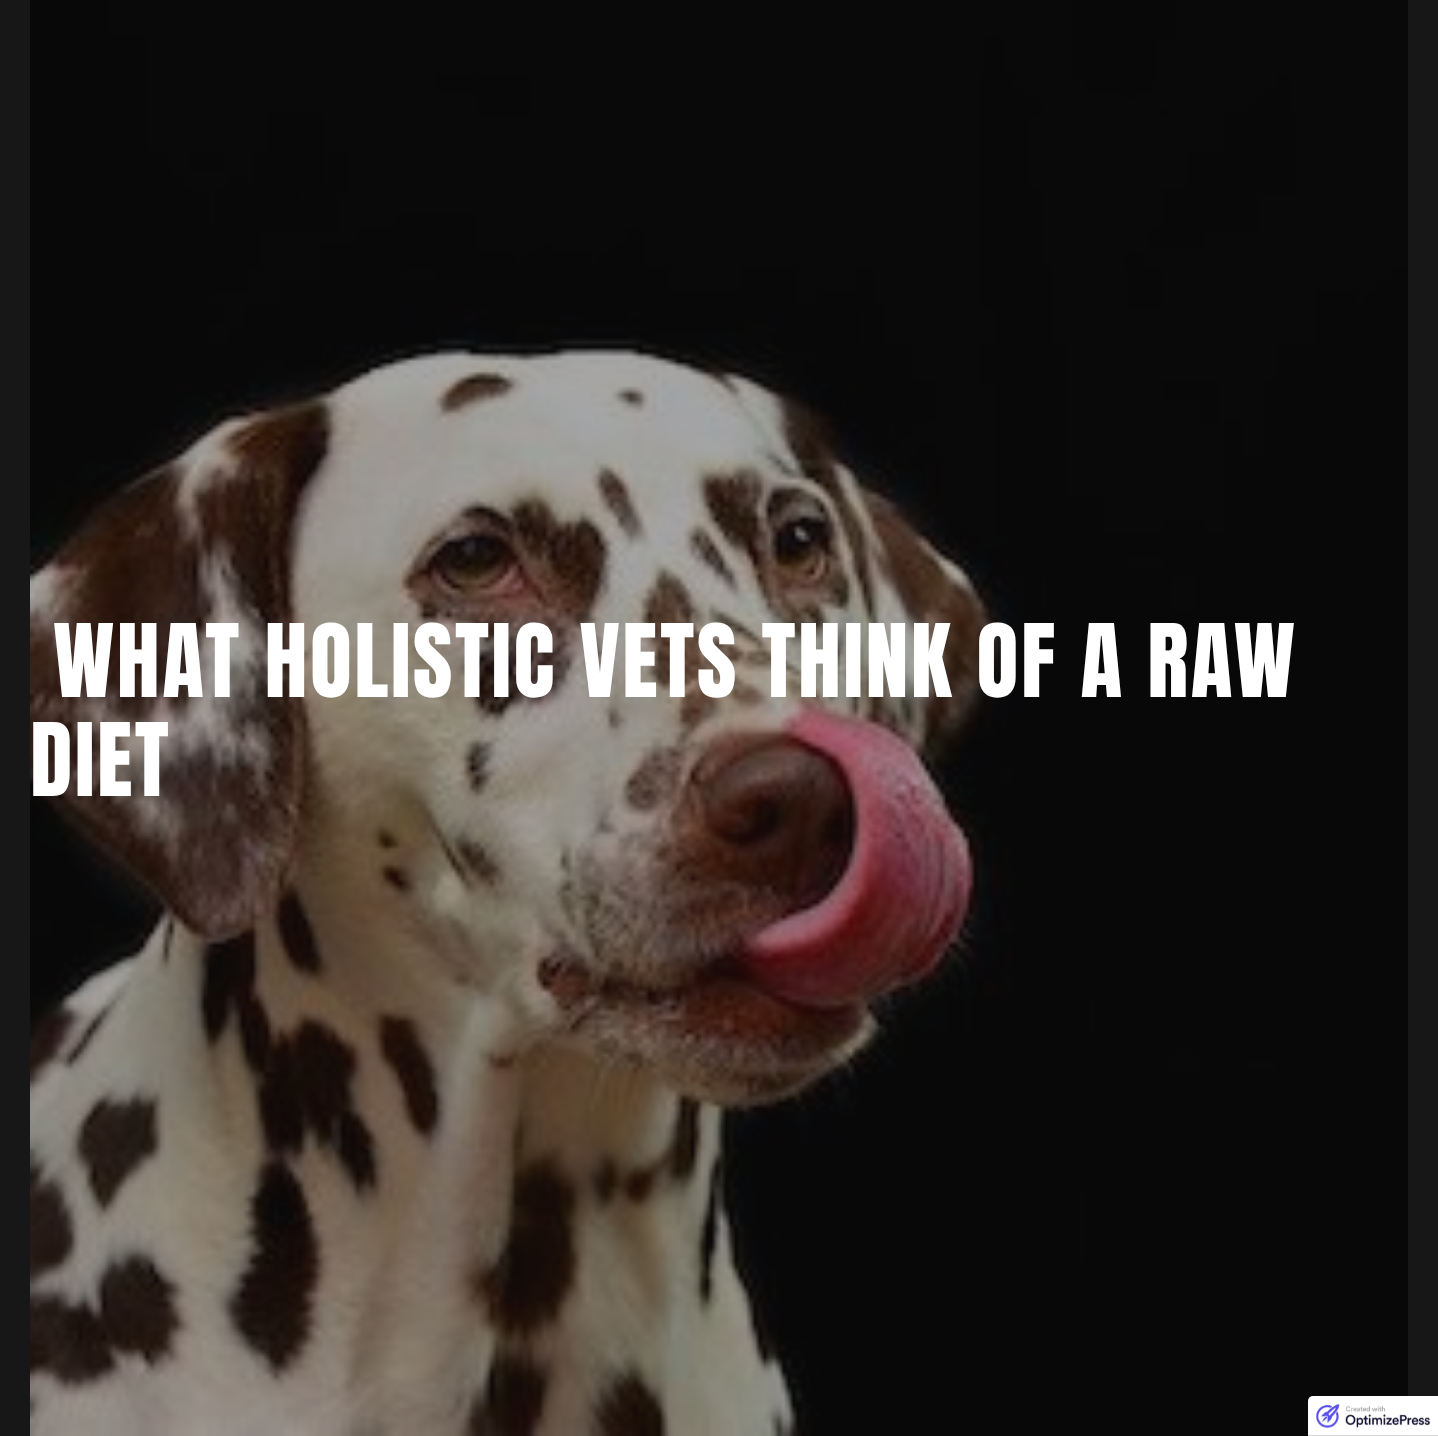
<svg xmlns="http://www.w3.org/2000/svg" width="1438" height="1436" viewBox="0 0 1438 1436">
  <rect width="100%" height="100%" fill="rgb(23,23,23)"/>
  <image x="30" y="0" width="1378" height="1436" href="pic1.png"/>
  <g font-family="Anton" font-size="86" letter-spacing="2.5" fill="rgb(255,255,255)">
    <text x="53" y="697">WHAT HOLISTIC VETS THINK OF A RAW</text>
    <text x="30" y="796">DIET</text>
  </g>
  <image x="1308" y="1396" width="130" height="40" href="pic2.png"/>
</svg>
